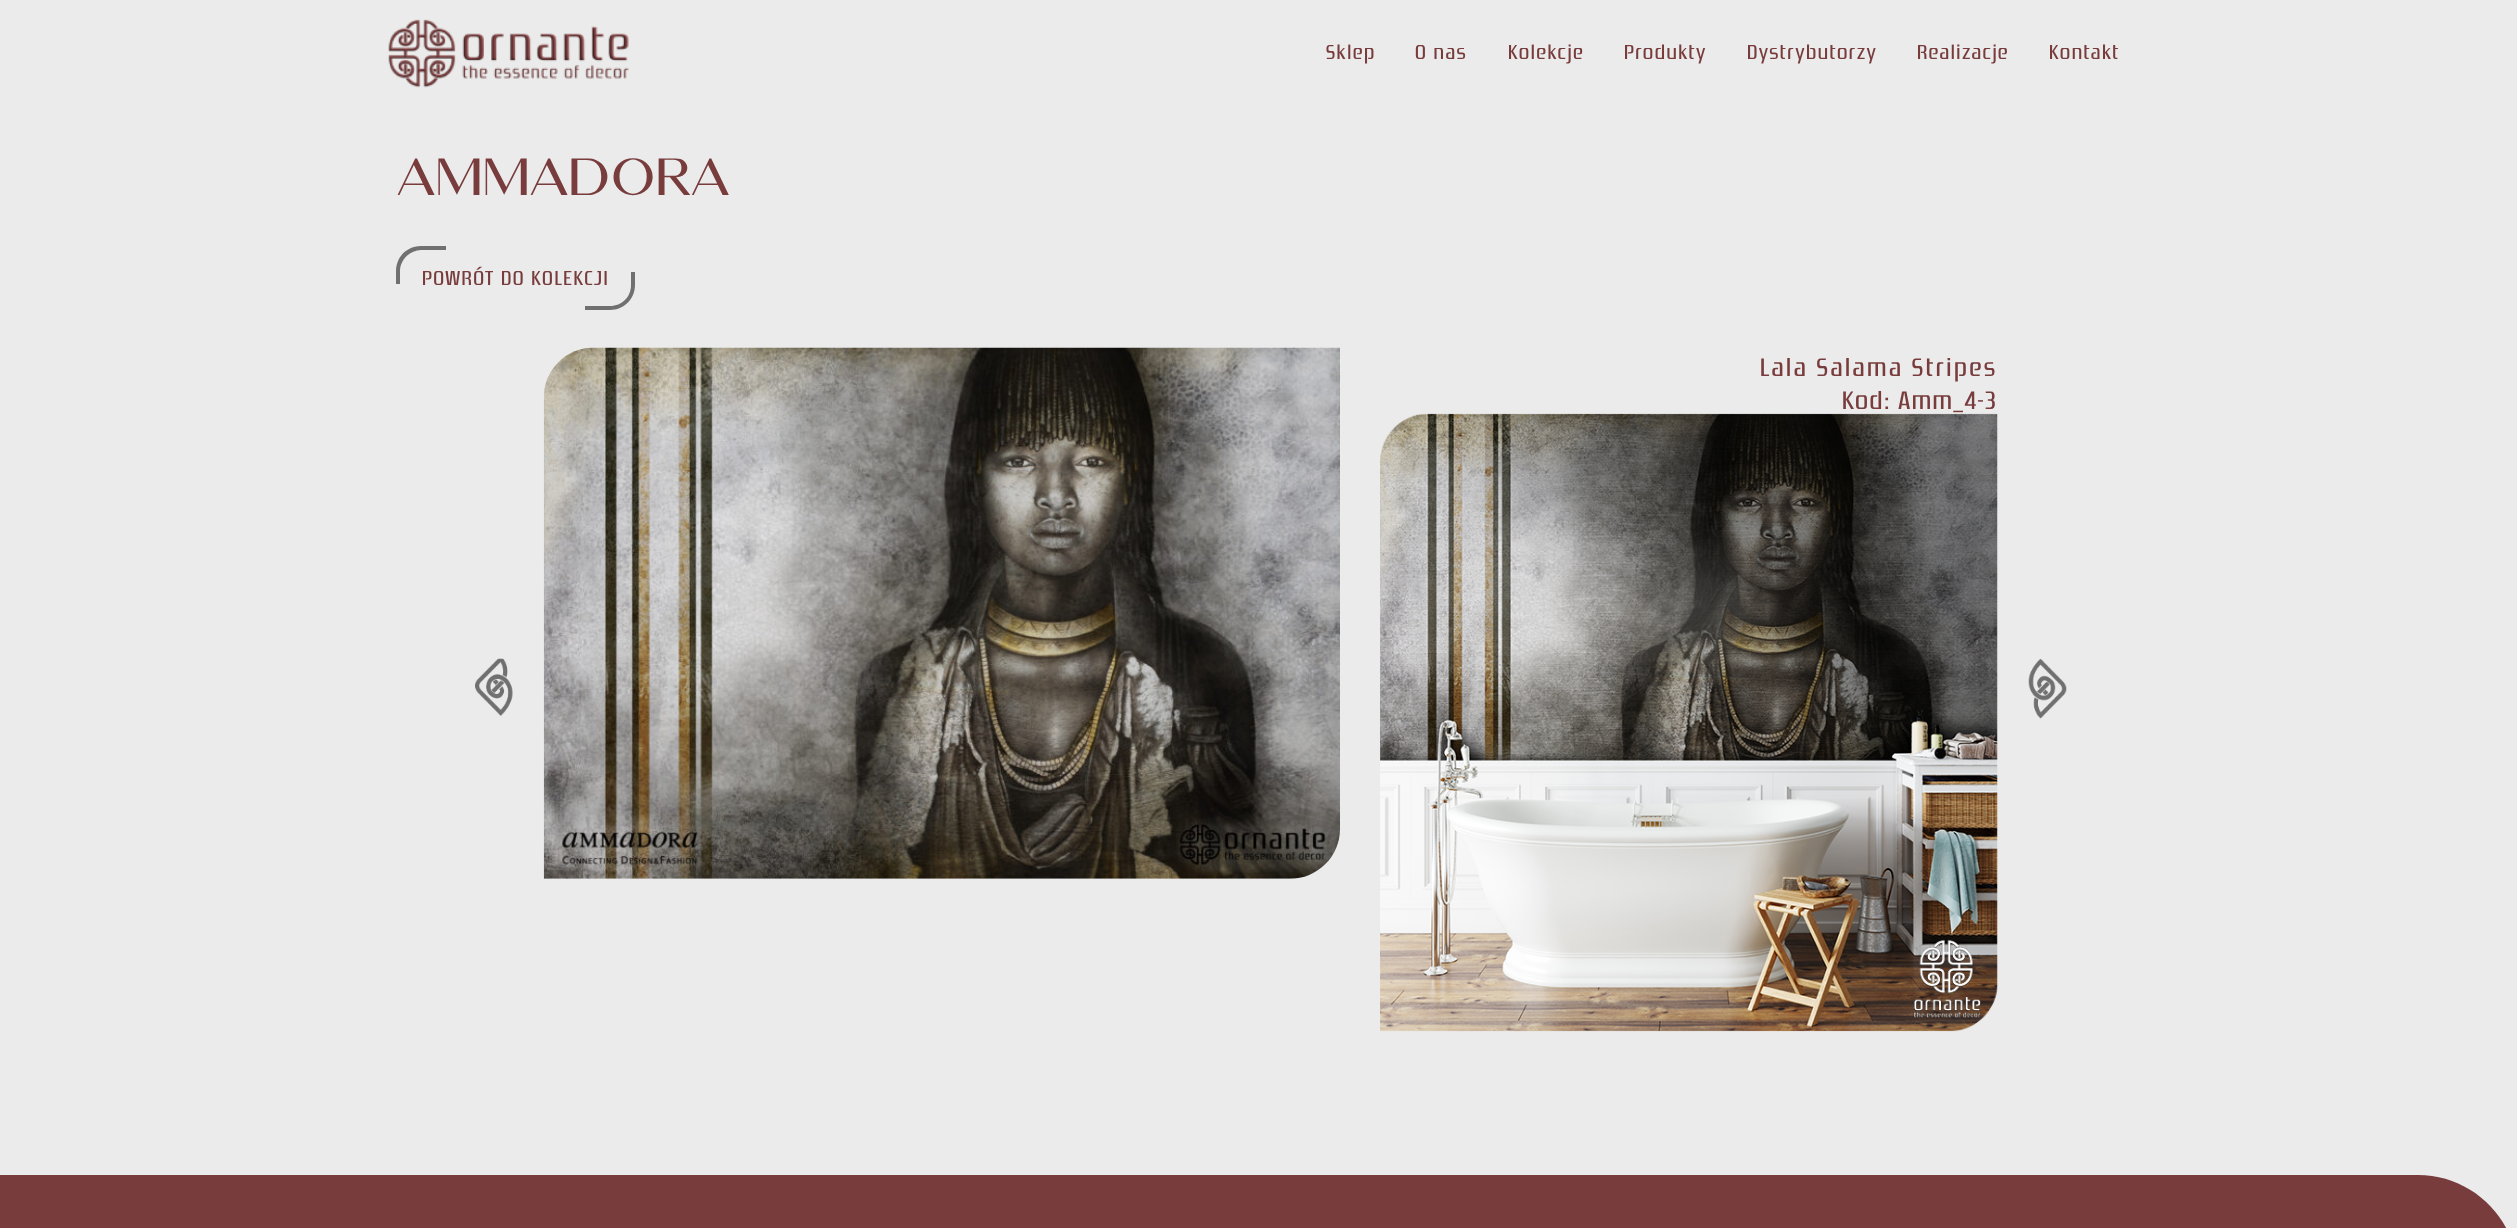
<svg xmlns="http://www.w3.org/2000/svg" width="2517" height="1228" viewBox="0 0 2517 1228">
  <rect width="100%" height="100%" fill="rgb(235,235,235)"/>
  <image x="388" y="19" width="241" height="69" href="pic1.png"/>
  <g font-family="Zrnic" font-size="20" letter-spacing="1.5" fill="rgb(120,60,61)">
    <text x="1326" y="59">Sklep</text>
    <text x="1415" y="59">O nas</text>
    <text x="1508" y="59">Kolekcje</text>
    <text x="1624" y="59">Produkty</text>
    <text x="1747" y="59">Dystrybutorzy</text>
    <text x="1917" y="59">Realizacje</text>
    <text x="2049" y="59">Kontakt</text>
  </g>
  <text x="396" y="195" font-family="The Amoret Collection" font-size="45.75" letter-spacing="-1.25" fill="rgb(120,60,61)">Ammadora</text>
  <text x="422" y="285" font-family="Zrnic" font-size="20" letter-spacing="1.5" fill="rgb(120,60,61)">POWRÓT DO KOLEKCJI</text>
  <path d="M421 246H446V284H396V271C396 257 407 246 421 246ZM421 250H446V284H400V271C400 260 410 250 421 250Z" fill="rgb(112,112,112)" fill-rule="evenodd"/>
  <path d="M585 272H635V285C635 299 624 310 610 310H585ZM585 272H631V285C631 297 622 306 610 306H585Z" fill="rgb(112,112,112)" fill-rule="evenodd"/>
  <image x="543" y="347" width="797" height="532" href="pic2.png"/>
  <text x="1760" y="376" font-family="Zrnic" font-size="25" letter-spacing="2.5" fill="rgb(120,60,61)">Lala Salama Stripes</text>
  <text x="1842" y="409" font-family="Zrnic" font-size="25" letter-spacing="1.5" fill="rgb(120,60,61)">Kod: Amm_4-3</text>
  <image x="1380" y="413" width="618" height="619" href="pic3.png"/>
  <image x="475" y="658" width="38" height="58" href="pic4.png"/>
  <image x="2028" y="658" width="39" height="61" href="pic5.png"/>
  <path d="M0 1175H2418C2473 1175 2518 1220 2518 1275V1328H0Z" fill="rgb(120,60,61)"/>
</svg>
